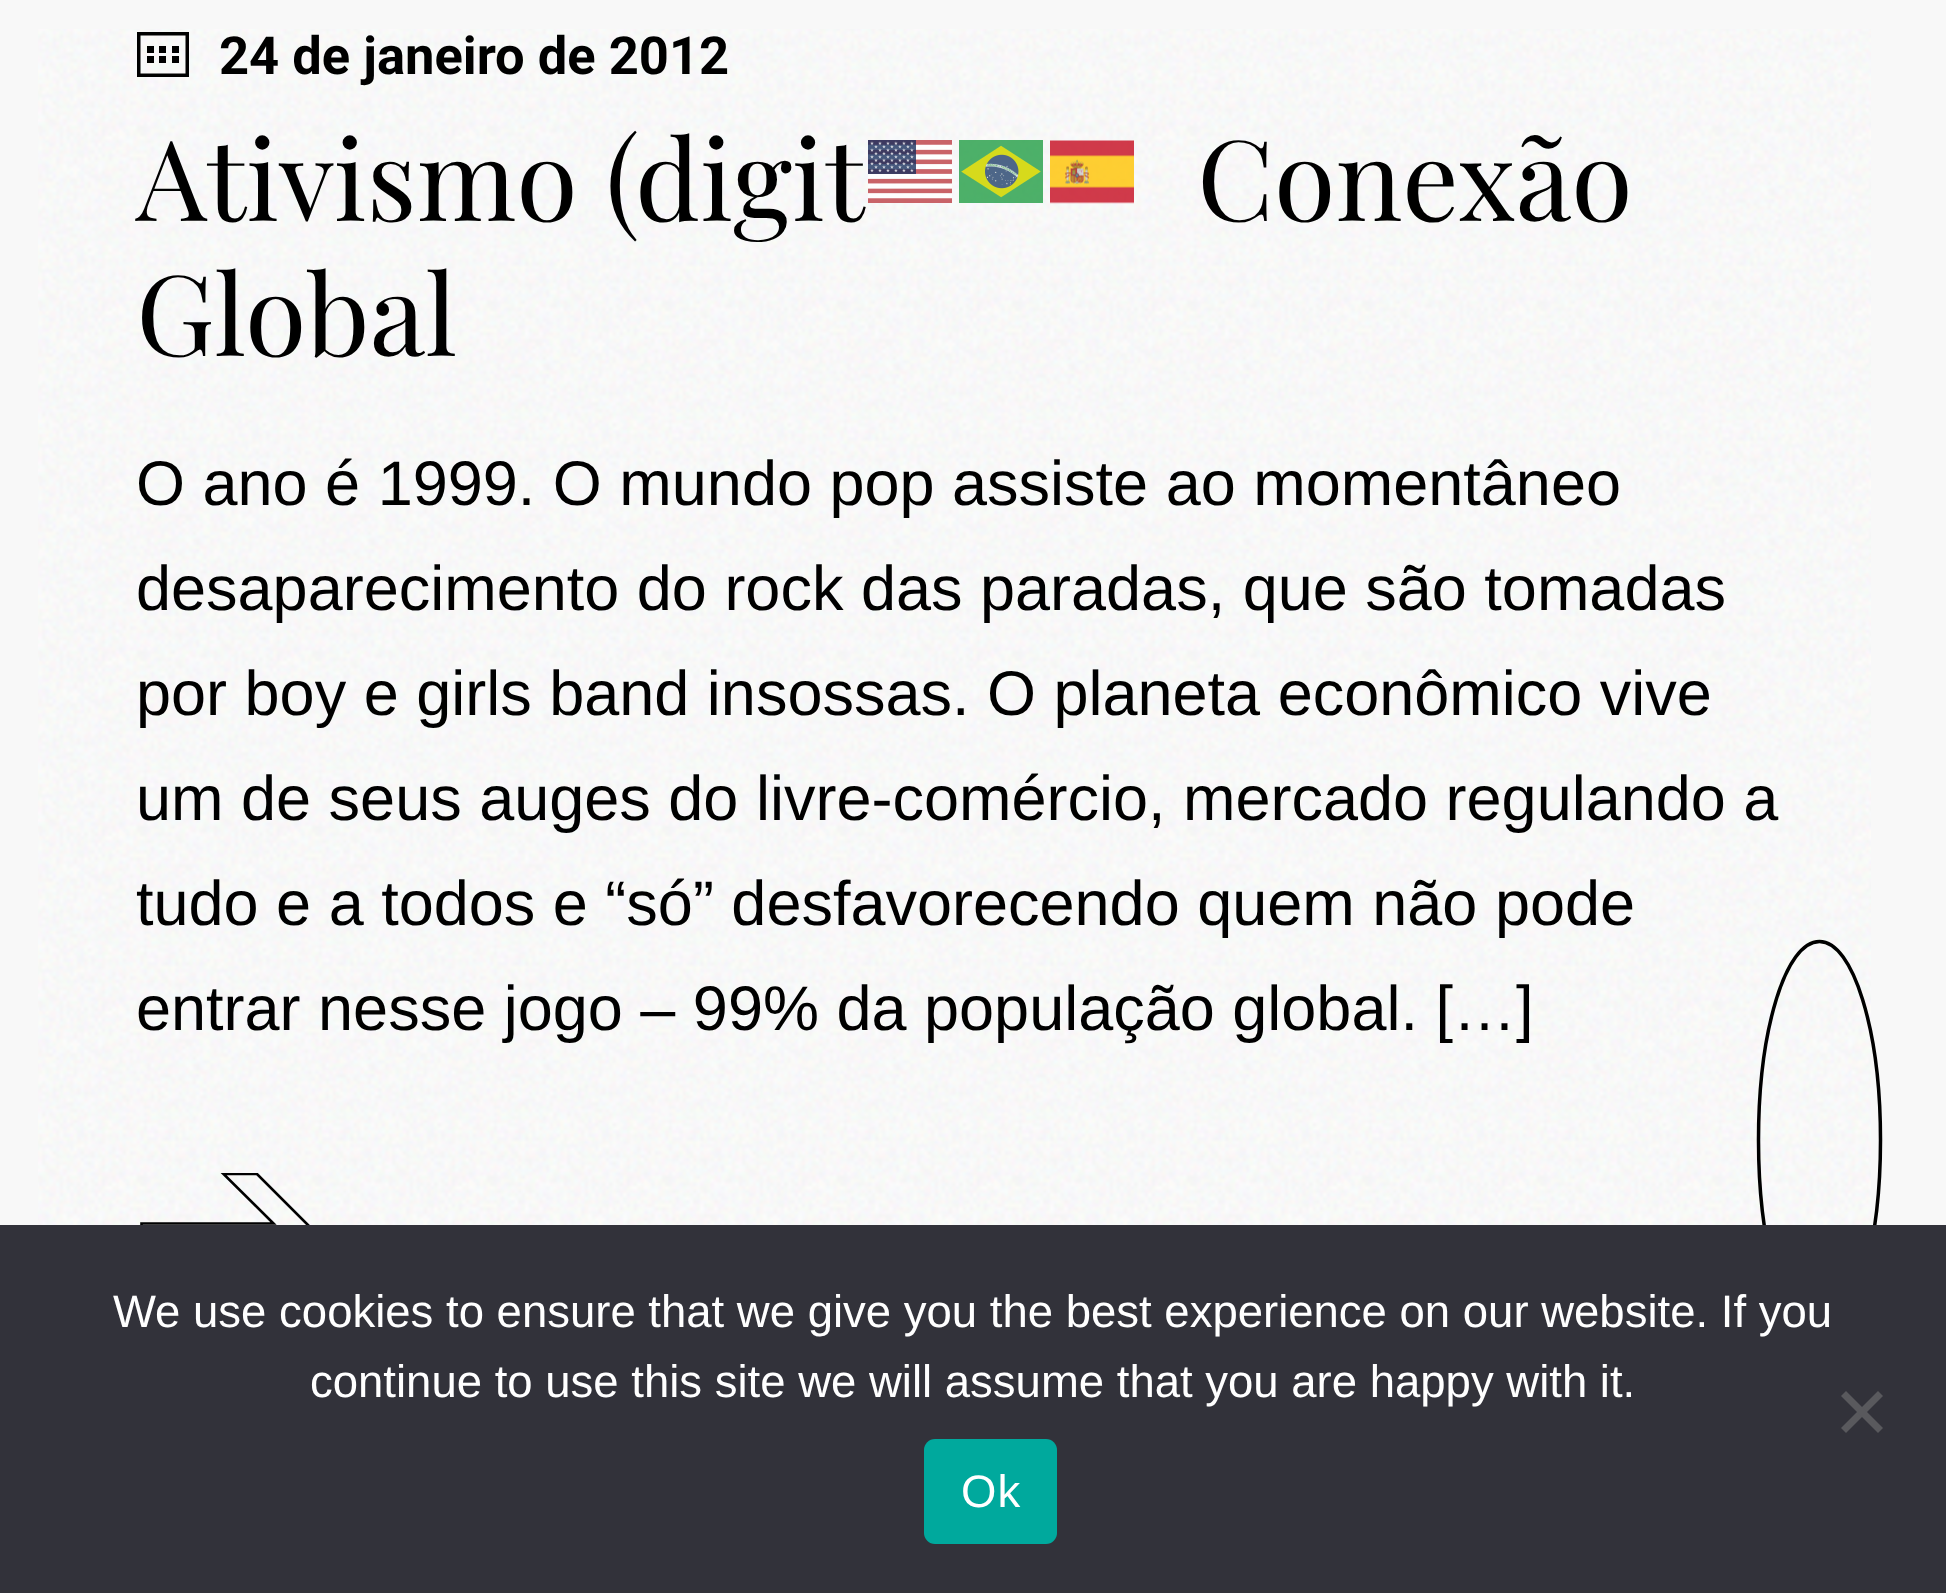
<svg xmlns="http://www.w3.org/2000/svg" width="1946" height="1593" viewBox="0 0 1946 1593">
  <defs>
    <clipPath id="clip1"><rect x="137" y="1173" width="185" height="122"/></clipPath>
  </defs>
  <rect width="100%" height="100%" fill="rgb(248,248,248)"/>
  <image x="38" y="29" width="1833" height="1196" href="pic1.png"/>
  <text x="219" y="74" font-family="Roboto" font-size="52.5" font-weight="bold" fill="rgb(0,0,0)">24 de janeiro de 2012</text>
  <rect x="138.75" y="33.75" width="48.5" height="41.5" fill="none" stroke="rgb(0,0,0)" stroke-width="3.5"/>
  <rect x="147" y="46" width="7" height="7" fill="rgb(0,0,0)"/>
  <rect x="159" y="46" width="7" height="7" fill="rgb(0,0,0)"/>
  <rect x="172" y="46" width="7" height="7" fill="rgb(0,0,0)"/>
  <rect x="147" y="56" width="7" height="7" fill="rgb(0,0,0)"/>
  <rect x="159" y="56" width="7" height="7" fill="rgb(0,0,0)"/>
  <rect x="172" y="56" width="7" height="7" fill="rgb(0,0,0)"/>
  <g font-family="Playfair Display" font-size="112" fill="rgb(0,0,0)">
    <text x="136" y="221">Ativismo (digit</text>
    <text x="1197" y="221">Conexão</text>
    <text x="136" y="356">Global</text>
  </g>
  <g font-family="Liberation Sans" font-size="63" fill="rgb(0,0,0)">
    <text>
      <tspan x="136" y="505">O ano é 1999. O mundo pop assiste ao momentâneo</tspan>
      <tspan x="136" y="610">desaparecimento do rock das paradas, que são tomadas</tspan>
      <tspan x="136" y="715">por boy e girls band insossas. O planeta econômico vive</tspan>
      <tspan x="136" y="820">um de seus auges do livre-comércio, mercado regulando a</tspan>
      <tspan x="136" y="925">tudo e a todos e “só” desfavorecendo quem não pode</tspan>
      <tspan x="136" y="1030">entrar nesse jogo – 99% da população global. […]</tspan>
    </text>
  </g>
  <g clip-path="url(#clip1)">
    <path d="M141.5 1223.5H273.5L223.5 1174H257L316.5 1233.5L256.5 1293.5H224L273 1244.5H141.5Z" fill="none" stroke="rgb(0,0,0)" stroke-width="2.6"/>
  </g>
  <path d="M1758.5 1140C1758.5 1030 1785.5 941.5 1819.5 941.5C1853 941.5 1880.5 1030 1880.5 1140C1880.5 1249.5 1853 1338.5 1819.5 1338.5C1785.5 1338.5 1758.5 1249.5 1758.5 1140Z" fill="none" stroke="rgb(0,0,0)" stroke-width="3.5"/>
  <image x="868" y="140" width="84" height="63" href="pic2.png"/>
  <image x="959" y="140" width="84" height="63" href="pic3.png"/>
  <image x="1050" y="140" width="84" height="64" href="pic4.png"/>
  <rect x="0" y="1225" width="1946" height="368" fill="rgb(50,50,58)"/>
  <g font-family="Liberation Sans" font-size="45.5" fill="rgb(255,255,255)">
    <text x="113" y="1327">We use cookies to ensure that we give you the best experience on our website. If you</text>
    <text x="310" y="1397">continue to use this site we will assume that you are happy with it.</text>
  </g>
  <path d="M1878 1391L1883 1396L1846 1433L1841 1428Z" fill="rgb(89,89,93)"/>
  <path d="M1841 1396L1846 1391L1883 1428L1878 1433Z" fill="rgb(89,89,93)"/>
  <rect x="924" y="1439" width="133" height="105" rx="11" fill="rgb(0,169,157)"/>
  <text x="961" y="1507" font-family="Liberation Sans" font-size="45.5" letter-spacing="1" fill="rgb(255,255,255)">Ok</text>
</svg>
